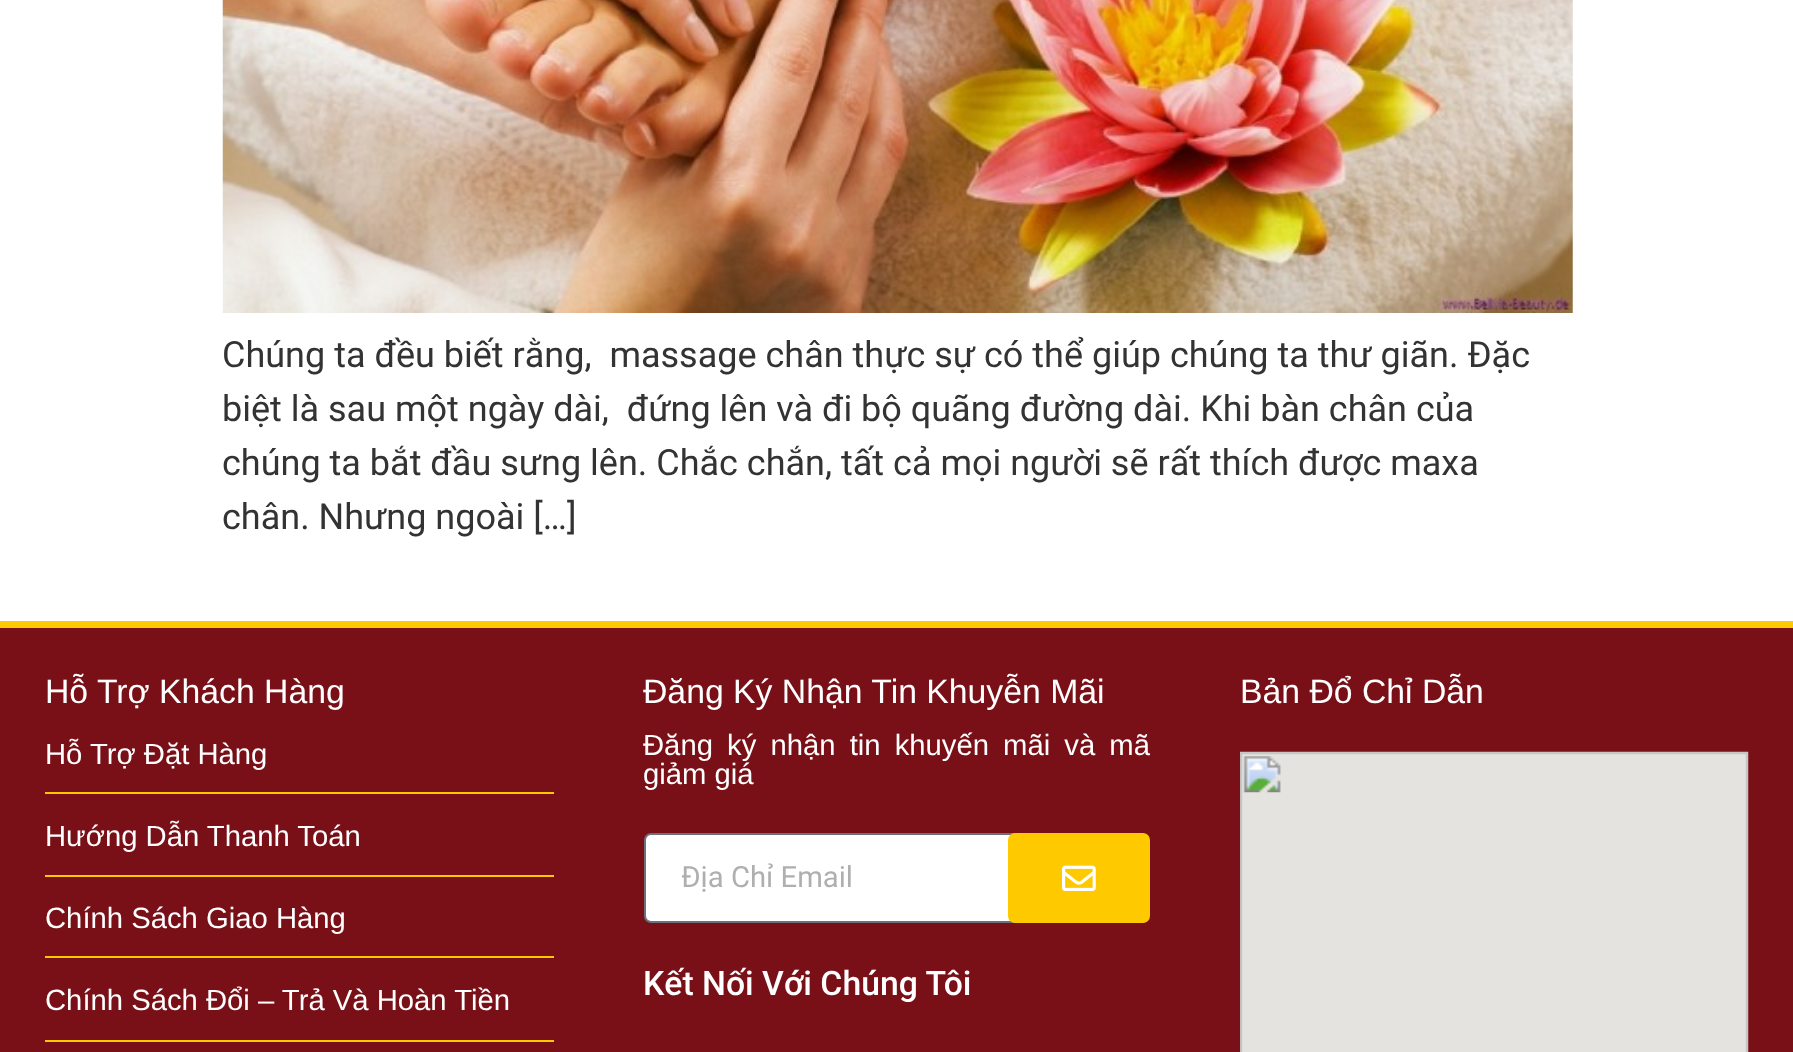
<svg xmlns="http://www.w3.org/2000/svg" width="1793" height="1052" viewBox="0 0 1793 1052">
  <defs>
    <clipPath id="clip1"><rect x="682" y="860" width="317" height="33"/></clipPath>
  </defs>
  <rect width="100%" height="100%" fill="rgb(255,255,255)"/>
  <image x="222" y="0" width="1351" height="313" href="pic1.png"/>
  <g font-family="Roboto" font-size="36" fill="rgb(51,51,51)">
    <text xml:space="preserve"><tspan x="222" y="367">Chúng ta đều biết rằng,  massage chân thực sự có thể giúp chúng ta thư giãn. Đặc</tspan><tspan x="222" y="421">biệt là sau một ngày dài,  đứng lên và đi bộ quãng đường dài. Khi bàn chân của</tspan><tspan x="222" y="475">chúng ta bắt đầu sưng lên. Chắc chắn, tất cả mọi người sẽ rất thích được maxa</tspan><tspan x="222" y="529">chân. Nhưng ngoài […]</tspan></text>
  </g>
  <rect x="0" y="628" width="1793" height="424" fill="rgb(121,16,23)"/>
  <rect x="0" y="621" width="1793" height="7" fill="rgb(255,201,0)"/>
  <text x="45" y="703" font-family="Liberation Sans" font-size="33.75" fill="rgb(255,255,255)">Hỗ Trợ Khách Hàng</text>
  <text x="45" y="764" font-family="Liberation Sans" font-size="29.25" fill="rgb(255,255,255)">Hỗ Trợ Đặt Hàng</text>
  <rect x="45" y="792" width="509" height="2" fill="rgb(255,201,0)"/>
  <text x="45" y="846" font-family="Liberation Sans" font-size="29.25" fill="rgb(255,255,255)">Hướng Dẫn Thanh Toán</text>
  <rect x="45" y="875" width="509" height="2" fill="rgb(255,201,0)"/>
  <text x="45" y="928" font-family="Liberation Sans" font-size="29.25" fill="rgb(255,255,255)">Chính Sách Giao Hàng</text>
  <rect x="45" y="956" width="509" height="2" fill="rgb(255,201,0)"/>
  <text x="45" y="1010" font-family="Liberation Sans" font-size="29.25" fill="rgb(255,255,255)">Chính Sách Đổi – Trả Và Hoàn Tiền</text>
  <rect x="45" y="1040" width="509" height="2" fill="rgb(255,201,0)"/>
  <text x="643" y="703" font-family="Liberation Sans" font-size="33.75" fill="rgb(255,255,255)">Đăng Ký Nhận Tin Khuyễn Mãi</text>
  <g font-family="Liberation Sans" font-size="29.25" fill="rgb(255,255,255)">
    <text>
      <tspan x="643" y="755" word-spacing="6">Đăng ký nhận tin khuyến mãi và mã</tspan>
      <tspan x="643" y="784">giảm giá</tspan>
    </text>
  </g>
  <rect x="645" y="834" width="391" height="88" rx="6" fill="rgb(255,255,255)" stroke="rgb(105,114,125)" stroke-width="2"/>
  <g clip-path="url(#clip1)">
    <text x="681" y="887" font-family="Roboto" font-size="29.25" fill="rgb(175,175,175)">Địa Chỉ Email</text>
  </g>
  <rect x="1008" y="833" width="142" height="90" rx="7" fill="rgb(255,201,0)"/>
  <image x="1062" y="865" width="34" height="26" href="pic2.png"/>
  <text x="643" y="995" font-family="Roboto" font-size="33.75" font-weight="500" fill="rgb(255,255,255)">Kết Nối Với Chúng Tôi</text>
  <text x="1240" y="703" font-family="Liberation Sans" font-size="33.75" fill="rgb(255,255,255)">Bản Đổ Chỉ Dẫn</text>
  <image x="1240" y="751" width="509" height="301" href="pic3.png"/>
</svg>
